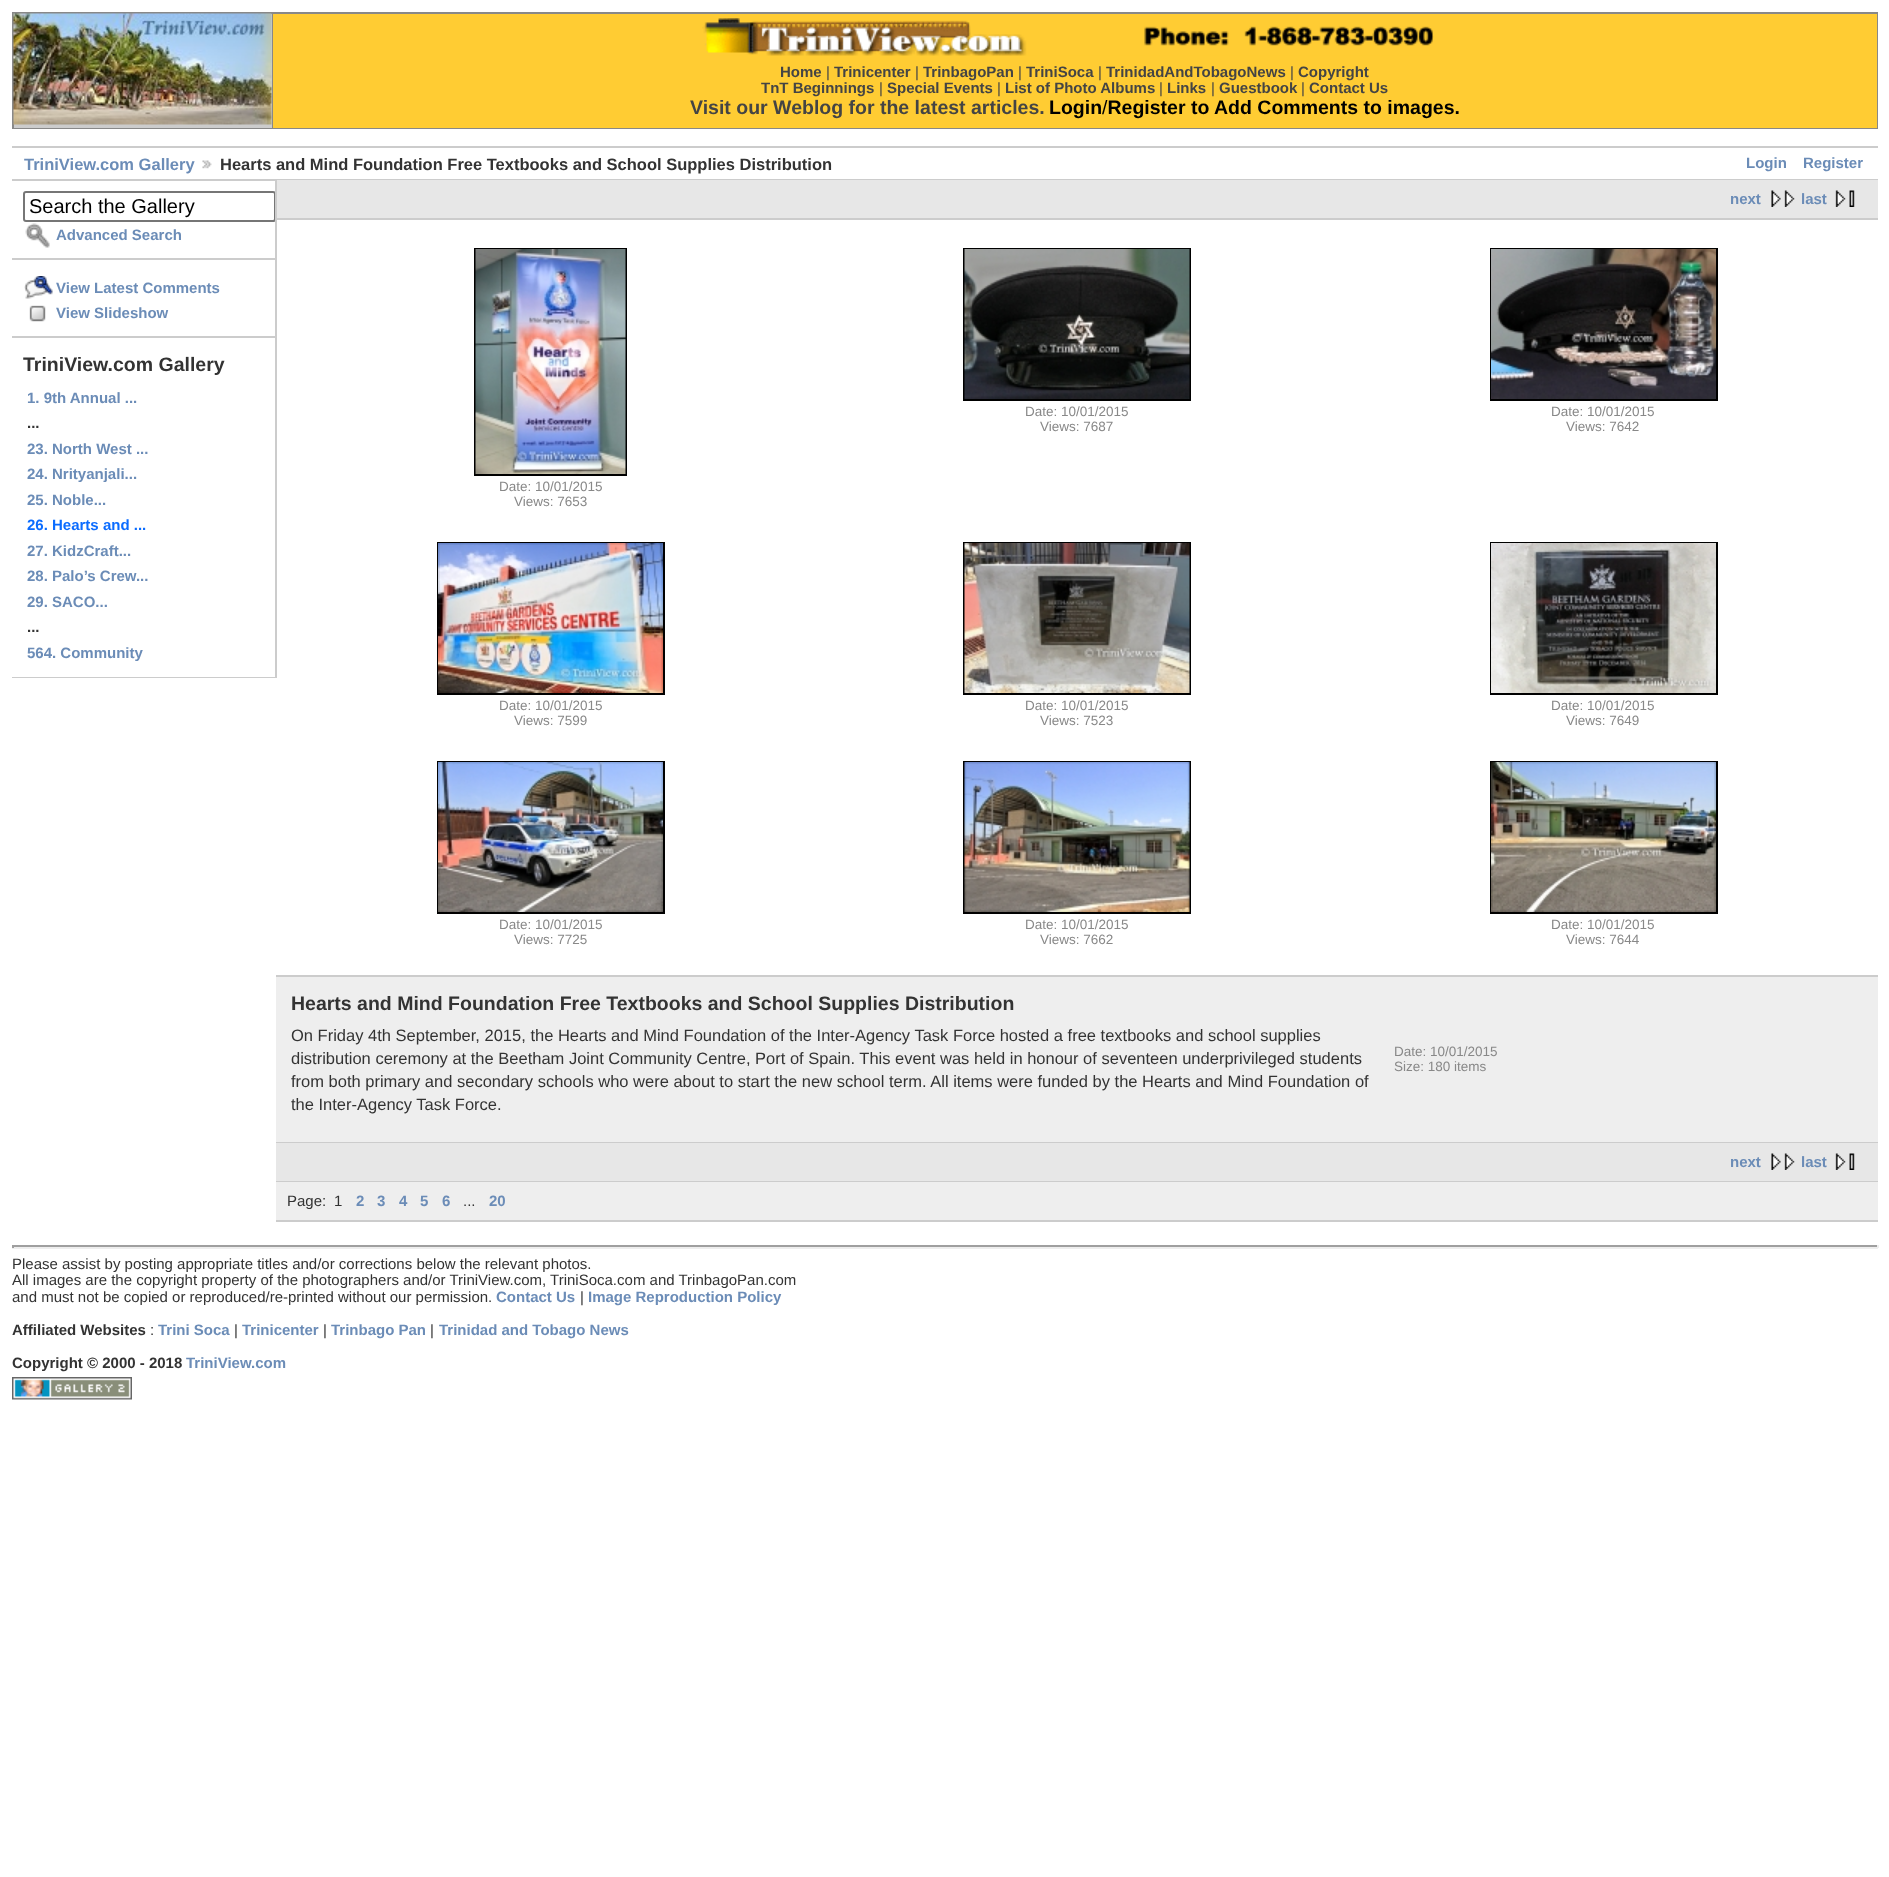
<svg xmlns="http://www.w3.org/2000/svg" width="1889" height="1877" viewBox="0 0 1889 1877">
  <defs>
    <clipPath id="clip1"><rect x="12" y="180" width="263" height="498"/></clipPath>
  </defs>
  <rect width="100%" height="100%" fill="rgb(255,255,255)"/>
  <rect x="12" y="12" width="1866" height="117" fill="rgb(136,136,136)"/>
  <rect x="14" y="14" width="258" height="114" fill="rgb(204,204,204)"/>
  <image x="13" y="13" width="259" height="112" href="pic1.png"/>
  <rect x="273" y="14" width="1604" height="114" fill="rgb(255,204,51)"/>
  <image x="702" y="18" width="732" height="38" href="pic2.png"/>
  <text x="780" y="77" font-family="Liberation Sans" font-size="15" font-weight="bold" fill="rgb(68,68,68)">Home</text>
  <text x="826" y="77" font-family="Liberation Sans" font-size="15" fill="rgb(68,68,68)">|</text>
  <text x="834" y="77" font-family="Liberation Sans" font-size="15" font-weight="bold" fill="rgb(68,68,68)">Trinicenter</text>
  <text x="915" y="77" font-family="Liberation Sans" font-size="15" fill="rgb(68,68,68)">|</text>
  <text x="923" y="77" font-family="Liberation Sans" font-size="15" font-weight="bold" fill="rgb(68,68,68)">TrinbagoPan</text>
  <text x="1018" y="77" font-family="Liberation Sans" font-size="15" fill="rgb(68,68,68)">|</text>
  <text x="1026" y="77" font-family="Liberation Sans" font-size="15" font-weight="bold" fill="rgb(68,68,68)">TriniSoca</text>
  <text x="1098" y="77" font-family="Liberation Sans" font-size="15" fill="rgb(68,68,68)">|</text>
  <text x="1106" y="77" font-family="Liberation Sans" font-size="15" font-weight="bold" fill="rgb(68,68,68)">TrinidadAndTobagoNews</text>
  <text x="1290" y="77" font-family="Liberation Sans" font-size="15" fill="rgb(68,68,68)">|</text>
  <g font-family="Liberation Sans" font-size="15" font-weight="bold" fill="rgb(68,68,68)">
    <text x="1298" y="77">Copyright</text>
    <text x="761" y="93">TnT Beginnings</text>
  </g>
  <text x="879" y="93" font-family="Liberation Sans" font-size="15" fill="rgb(68,68,68)">|</text>
  <text x="887" y="93" font-family="Liberation Sans" font-size="15" font-weight="bold" fill="rgb(68,68,68)">Special Events</text>
  <text x="997" y="93" font-family="Liberation Sans" font-size="15" fill="rgb(68,68,68)">|</text>
  <text x="1005" y="93" font-family="Liberation Sans" font-size="15" font-weight="bold" fill="rgb(68,68,68)">List of Photo Albums</text>
  <text x="1159" y="93" font-family="Liberation Sans" font-size="15" fill="rgb(68,68,68)">|</text>
  <text x="1167" y="93" font-family="Liberation Sans" font-size="15" font-weight="bold" fill="rgb(68,68,68)">Links</text>
  <text x="1211" y="93" font-family="Liberation Sans" font-size="15" fill="rgb(68,68,68)">|</text>
  <text x="1219" y="93" font-family="Liberation Sans" font-size="15" font-weight="bold" fill="rgb(68,68,68)">Guestbook</text>
  <text x="1301" y="93" font-family="Liberation Sans" font-size="15" fill="rgb(68,68,68)">|</text>
  <text x="1309" y="93" font-family="Liberation Sans" font-size="15" font-weight="bold" fill="rgb(68,68,68)">Contact Us</text>
  <text x="690" y="114" font-family="Liberation Sans" font-size="19.5" font-weight="bold" fill="rgb(68,68,68)">Visit our Weblog for the latest articles.</text>
  <text x="1049" y="114" font-family="Liberation Sans" font-size="19.5" font-weight="bold" fill="rgb(0,0,0)">Login Register to Add Comments to images.</text>
  <text x="1102" y="114" font-family="Liberation Sans" font-size="19.5" fill="rgb(0,0,0)">/</text>
  <rect x="12" y="146" width="1866" height="2" fill="rgb(204,204,204)"/>
  <rect x="12" y="179" width="1866" height="2" fill="rgb(204,204,204)"/>
  <text x="24" y="170" font-family="Liberation Sans" font-size="16.5" font-weight="bold" fill="rgb(107,140,183)">TriniView.com Gallery</text>
  <image x="202" y="160" width="10" height="9" href="pic3.png"/>
  <text x="220" y="170" font-family="Liberation Sans" font-size="16.5" font-weight="bold" fill="rgb(51,51,51)">Hearts and Mind Foundation Free Textbooks and School Supplies Distribution</text>
  <g font-family="Liberation Sans" font-size="15" font-weight="bold" fill="rgb(107,140,183)">
    <text x="1746" y="168">Login</text>
    <text x="1803" y="168">Register</text>
  </g>
  <rect x="276" y="218" width="1602" height="2" fill="rgb(204,204,204)"/>
  <rect x="275" y="180" width="2" height="498" fill="rgb(204,204,204)"/>
  <rect x="12" y="258" width="263" height="2" fill="rgb(204,204,204)"/>
  <g clip-path="url(#clip1)">
    <rect x="24" y="192" width="251" height="29" rx="2" fill="none" stroke="rgb(118,118,118)" stroke-width="2"/>
  </g>
  <text x="29" y="213" font-family="Liberation Sans" font-size="20" fill="rgb(0,0,0)">Search the Gallery</text>
  <image x="25" y="223" width="25" height="25" href="pic4.png"/>
  <text x="56" y="240" font-family="Liberation Sans" font-size="15" font-weight="bold" fill="rgb(107,140,183)">Advanced Search</text>
  <rect x="12" y="336" width="263" height="2" fill="rgb(204,204,204)"/>
  <image x="24" y="276" width="29" height="23" href="pic5.png"/>
  <text x="56" y="293" font-family="Liberation Sans" font-size="15" font-weight="bold" fill="rgb(107,140,183)">View Latest Comments</text>
  <image x="29" y="305" width="17" height="17" href="pic6.png"/>
  <text x="56" y="318" font-family="Liberation Sans" font-size="15" font-weight="bold" fill="rgb(107,140,183)">View Slideshow</text>
  <rect x="12" y="677" width="263" height="1" fill="rgb(204,204,204)"/>
  <text x="23" y="371" font-family="Liberation Sans" font-size="19.5" font-weight="bold" fill="rgb(51,51,51)">TriniView.com Gallery</text>
  <text x="27" y="403" font-family="Liberation Sans" font-size="15" font-weight="bold" fill="rgb(107,140,183)">1. 9th Annual ...</text>
  <text x="27" y="428" font-family="Liberation Sans" font-size="15" font-weight="bold" fill="rgb(51,51,51)">...</text>
  <g font-family="Liberation Sans" font-size="15" font-weight="bold" fill="rgb(107,140,183)">
    <text>
      <tspan x="27" y="454">23. North West ...</tspan>
      <tspan x="27" y="479">24. Nrityanjali...</tspan>
      <tspan x="27" y="505">25. Noble...</tspan>
    </text>
  </g>
  <text x="27" y="530" font-family="Liberation Sans" font-size="15" font-weight="bold" fill="rgb(11,108,255)">26. Hearts and ...</text>
  <g font-family="Liberation Sans" font-size="15" font-weight="bold" fill="rgb(107,140,183)">
    <text>
      <tspan x="27" y="556">27. KidzCraft...</tspan>
      <tspan x="27" y="581">28. Palo’s Crew...</tspan>
      <tspan x="27" y="607">29. SACO...</tspan>
    </text>
  </g>
  <text x="27" y="632" font-family="Liberation Sans" font-size="15" font-weight="bold" fill="rgb(51,51,51)">...</text>
  <text x="27" y="658" font-family="Liberation Sans" font-size="15" font-weight="bold" fill="rgb(107,140,183)">564. Community</text>
  <rect x="277" y="180" width="1601" height="38" fill="rgb(231,231,231)"/>
  <text x="1730" y="204" font-family="Liberation Sans" font-size="15" font-weight="bold" fill="rgb(107,140,183)">next</text>
  <image x="1771" y="190" width="24" height="17" href="pic7.png"/>
  <text x="1801" y="204" font-family="Liberation Sans" font-size="15" font-weight="bold" fill="rgb(107,140,183)">last</text>
  <image x="1835" y="190" width="20" height="17" href="pic8.png"/>
  <rect x="276" y="975" width="1602" height="2" fill="rgb(204,204,204)"/>
  <rect x="964" y="249" width="226" height="151" fill="none" stroke="rgb(0,0,0)" stroke-width="2"/>
  <image x="964" y="249" width="226" height="150" href="pic9.png"/>
  <g font-family="Liberation Sans" font-size="13.5" fill="rgb(136,136,136)">
    <text x="1025" y="416">Date: 10/01/2015</text>
    <text x="1040" y="431">Views: 7687</text>
  </g>
  <rect x="1491" y="249" width="226" height="151" fill="none" stroke="rgb(0,0,0)" stroke-width="2"/>
  <image x="1491" y="249" width="225" height="150" href="pic10.png"/>
  <g font-family="Liberation Sans" font-size="13.5" fill="rgb(136,136,136)">
    <text x="1551" y="416">Date: 10/01/2015</text>
    <text x="1566" y="431">Views: 7642</text>
  </g>
  <rect x="475" y="249" width="151" height="226" fill="none" stroke="rgb(0,0,0)" stroke-width="2"/>
  <image x="475" y="249" width="151" height="225" href="pic11.png"/>
  <g font-family="Liberation Sans" font-size="13.5" fill="rgb(136,136,136)">
    <text x="499" y="491">Date: 10/01/2015</text>
    <text x="514" y="506">Views: 7653</text>
  </g>
  <rect x="438" y="543" width="226" height="151" fill="none" stroke="rgb(0,0,0)" stroke-width="2"/>
  <image x="438" y="543" width="225" height="150" href="pic12.png"/>
  <g font-family="Liberation Sans" font-size="13.5" fill="rgb(136,136,136)">
    <text x="499" y="710">Date: 10/01/2015</text>
    <text x="514" y="725">Views: 7599</text>
  </g>
  <rect x="964" y="543" width="226" height="151" fill="none" stroke="rgb(0,0,0)" stroke-width="2"/>
  <image x="964" y="543" width="226" height="150" href="pic13.png"/>
  <g font-family="Liberation Sans" font-size="13.5" fill="rgb(136,136,136)">
    <text x="1025" y="710">Date: 10/01/2015</text>
    <text x="1040" y="725">Views: 7523</text>
  </g>
  <rect x="1491" y="543" width="226" height="151" fill="none" stroke="rgb(0,0,0)" stroke-width="2"/>
  <image x="1491" y="543" width="225" height="150" href="pic14.png"/>
  <g font-family="Liberation Sans" font-size="13.5" fill="rgb(136,136,136)">
    <text x="1551" y="710">Date: 10/01/2015</text>
    <text x="1566" y="725">Views: 7649</text>
  </g>
  <rect x="438" y="762" width="226" height="151" fill="none" stroke="rgb(0,0,0)" stroke-width="2"/>
  <image x="438" y="762" width="225" height="150" href="pic15.png"/>
  <g font-family="Liberation Sans" font-size="13.5" fill="rgb(136,136,136)">
    <text x="499" y="929">Date: 10/01/2015</text>
    <text x="514" y="944">Views: 7725</text>
  </g>
  <rect x="964" y="762" width="226" height="151" fill="none" stroke="rgb(0,0,0)" stroke-width="2"/>
  <image x="964" y="762" width="226" height="150" href="pic16.png"/>
  <g font-family="Liberation Sans" font-size="13.5" fill="rgb(136,136,136)">
    <text x="1025" y="929">Date: 10/01/2015</text>
    <text x="1040" y="944">Views: 7662</text>
  </g>
  <rect x="1491" y="762" width="226" height="151" fill="none" stroke="rgb(0,0,0)" stroke-width="2"/>
  <image x="1491" y="762" width="225" height="150" href="pic17.png"/>
  <g font-family="Liberation Sans" font-size="13.5" fill="rgb(136,136,136)">
    <text x="1551" y="929">Date: 10/01/2015</text>
    <text x="1566" y="944">Views: 7644</text>
  </g>
  <rect x="276" y="977" width="1602" height="165" fill="rgb(238,238,238)"/>
  <rect x="276" y="1142" width="1602" height="1" fill="rgb(204,204,204)"/>
  <text x="291" y="1010" font-family="Liberation Sans" font-size="19.5" font-weight="bold" fill="rgb(51,51,51)">Hearts and Mind Foundation Free Textbooks and School Supplies Distribution</text>
  <g font-family="Liberation Sans" font-size="16.5" fill="rgb(51,51,51)">
    <text>
      <tspan x="291" y="1041">On Friday 4th September, 2015, the Hearts and Mind Foundation of the Inter-Agency Task Force hosted a free textbooks and school supplies</tspan>
      <tspan x="291" y="1064">distribution ceremony at the Beetham Joint Community Centre, Port of Spain. This event was held in honour of seventeen underprivileged students</tspan>
      <tspan x="291" y="1087">from both primary and secondary schools who were about to start the new school term. All items were funded by the Hearts and Mind Foundation of</tspan>
      <tspan x="291" y="1110">the Inter-Agency Task Force.</tspan>
    </text>
  </g>
  <g font-family="Liberation Sans" font-size="13.5" fill="rgb(136,136,136)">
    <text>
      <tspan x="1394" y="1056">Date: 10/01/2015</tspan>
      <tspan x="1394" y="1071">Size: 180 items</tspan>
    </text>
  </g>
  <rect x="276" y="1143" width="1602" height="38" fill="rgb(231,231,231)"/>
  <rect x="276" y="1181" width="1602" height="1" fill="rgb(204,204,204)"/>
  <text x="1730" y="1167" font-family="Liberation Sans" font-size="15" font-weight="bold" fill="rgb(107,140,183)">next</text>
  <image x="1771" y="1153" width="24" height="17" href="pic7.png"/>
  <text x="1801" y="1167" font-family="Liberation Sans" font-size="15" font-weight="bold" fill="rgb(107,140,183)">last</text>
  <image x="1835" y="1153" width="20" height="17" href="pic8.png"/>
  <rect x="276" y="1182" width="1602" height="38" fill="rgb(238,238,238)"/>
  <rect x="276" y="1220" width="1602" height="2" fill="rgb(204,204,204)"/>
  <g font-family="Liberation Sans" font-size="15" fill="rgb(51,51,51)">
    <text x="287" y="1206">Page:</text>
    <text x="334" y="1206">1</text>
  </g>
  <g font-family="Liberation Sans" font-size="15" font-weight="bold" fill="rgb(107,140,183)">
    <text x="356" y="1206">2</text>
    <text x="377" y="1206">3</text>
    <text x="399" y="1206">4</text>
    <text x="420" y="1206">5</text>
    <text x="442" y="1206">6</text>
  </g>
  <text x="463" y="1206" font-family="Liberation Sans" font-size="15" fill="rgb(51,51,51)">...</text>
  <text x="489" y="1206" font-family="Liberation Sans" font-size="15" font-weight="bold" fill="rgb(107,140,183)">20</text>
  <rect x="12" y="1245" width="1866" height="2" fill="rgb(159,159,159)"/>
  <rect x="1877" y="1245" width="2" height="3" fill="rgb(238,238,238)"/>
  <rect x="12" y="1247" width="1866" height="2" fill="rgb(238,238,238)"/>
  <rect x="12" y="1245" width="2" height="3" fill="rgb(159,159,159)"/>
  <g font-family="Liberation Sans" font-size="15" fill="rgb(51,51,51)">
    <text>
      <tspan x="12" y="1269">Please assist by posting appropriate titles and/or corrections below the relevant photos.</tspan>
      <tspan x="12" y="1285">All images are the copyright property of the photographers and/or TriniView.com, TriniSoca.com and TrinbagoPan.com</tspan>
      <tspan x="12" y="1302">and must not be copied or reproduced/re-printed without our permission.</tspan>
    </text>
  </g>
  <text x="496" y="1302" font-family="Liberation Sans" font-size="15" font-weight="bold" fill="rgb(107,140,183)">Contact Us</text>
  <text x="580" y="1302" font-family="Liberation Sans" font-size="15" fill="rgb(51,51,51)">|</text>
  <text x="588" y="1302" font-family="Liberation Sans" font-size="15" font-weight="bold" fill="rgb(107,140,183)">Image Reproduction Policy</text>
  <text x="12" y="1335" font-family="Liberation Sans" font-size="15" font-weight="bold" fill="rgb(51,51,51)">Affiliated Websites</text>
  <text x="150" y="1335" font-family="Liberation Sans" font-size="15" fill="rgb(51,51,51)">:</text>
  <text x="158" y="1335" font-family="Liberation Sans" font-size="15" font-weight="bold" fill="rgb(107,140,183)">Trini Soca</text>
  <text x="234" y="1335" font-family="Liberation Sans" font-size="15" fill="rgb(51,51,51)">|</text>
  <text x="242" y="1335" font-family="Liberation Sans" font-size="15" font-weight="bold" fill="rgb(107,140,183)">Trinicenter</text>
  <text x="323" y="1335" font-family="Liberation Sans" font-size="15" fill="rgb(51,51,51)">|</text>
  <text x="331" y="1335" font-family="Liberation Sans" font-size="15" font-weight="bold" fill="rgb(107,140,183)">Trinbago Pan</text>
  <text x="430" y="1335" font-family="Liberation Sans" font-size="15" fill="rgb(51,51,51)">|</text>
  <text x="439" y="1335" font-family="Liberation Sans" font-size="15" font-weight="bold" fill="rgb(107,140,183)">Trinidad and Tobago News</text>
  <text x="12" y="1368" font-family="Liberation Sans" font-size="15" font-weight="bold" fill="rgb(51,51,51)">Copyright © 2000 - 2018</text>
  <text x="186" y="1368" font-family="Liberation Sans" font-size="15" font-weight="bold" fill="rgb(107,140,183)">TriniView.com</text>
  <image x="12" y="1377" width="120" height="23" href="pic18.png"/>
</svg>
